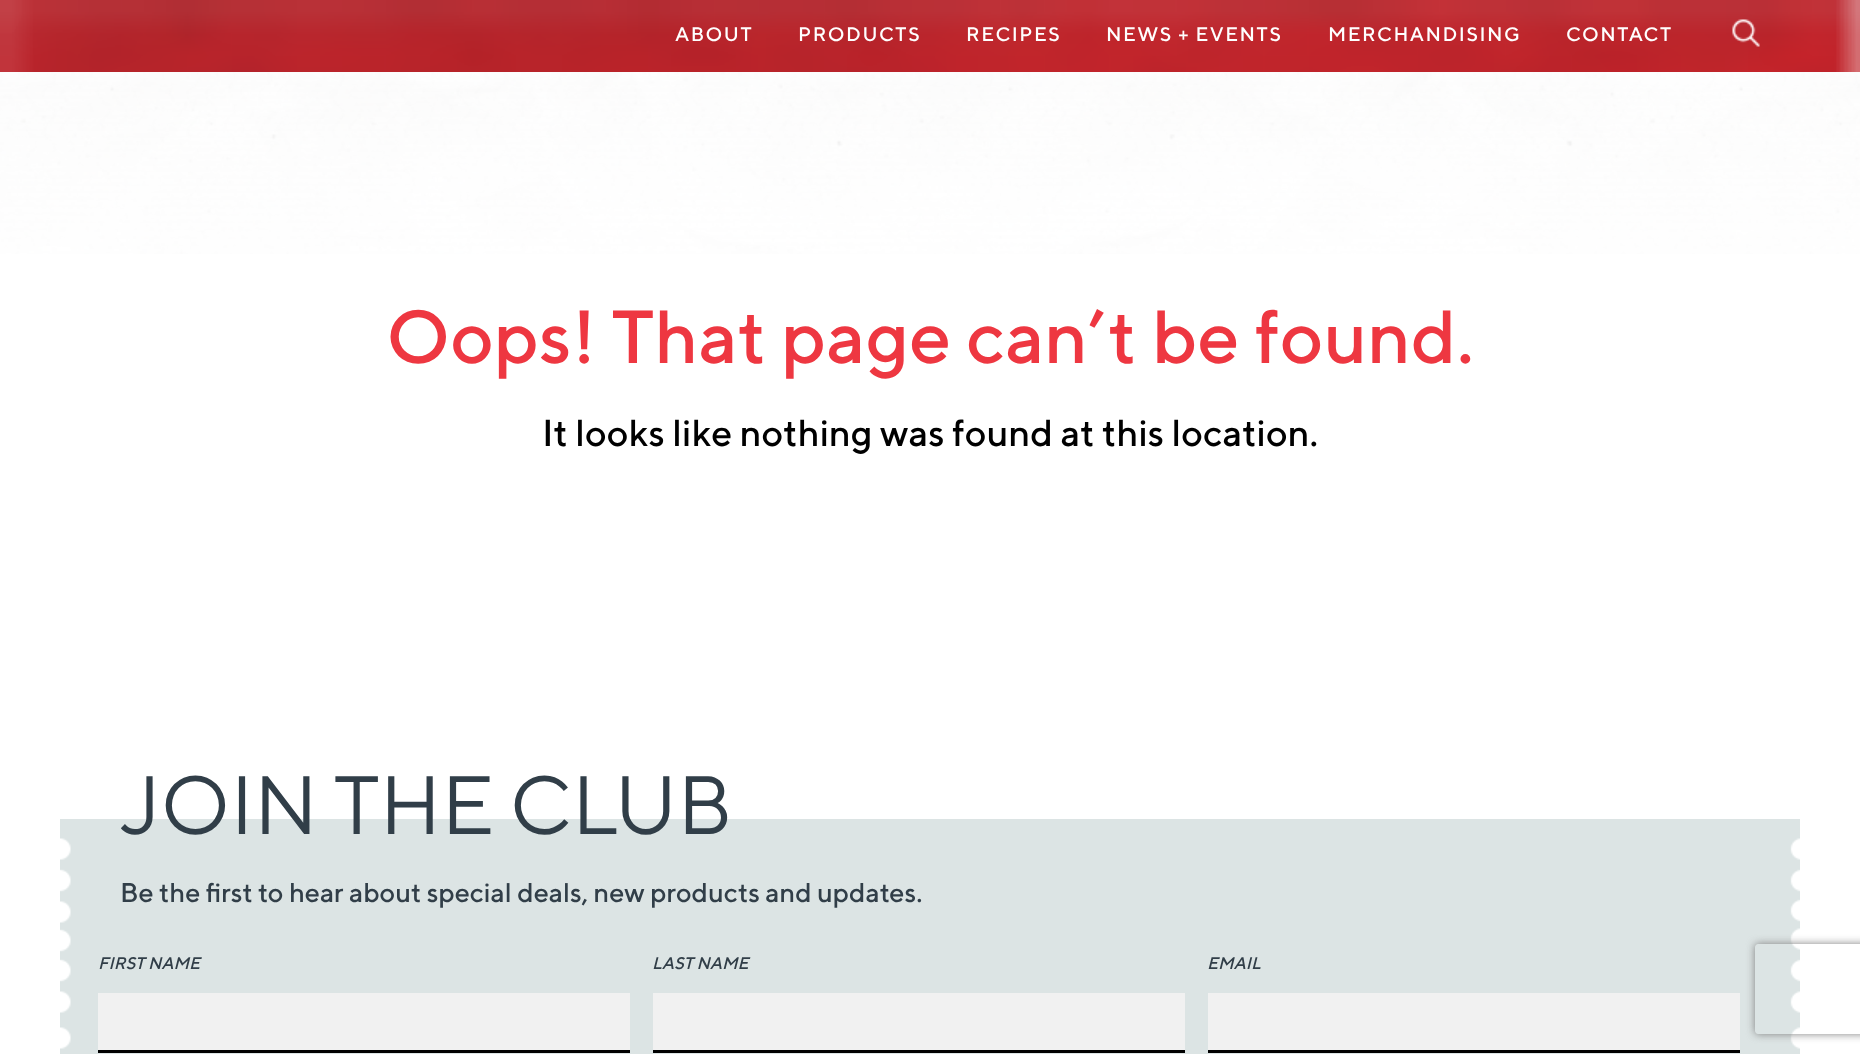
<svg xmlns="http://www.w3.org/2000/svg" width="1860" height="1054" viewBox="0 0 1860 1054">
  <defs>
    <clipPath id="clip1"><path d="M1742 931H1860V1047H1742ZM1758 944H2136C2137.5 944 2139 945.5 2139 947V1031C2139 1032.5 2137.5 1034 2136 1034H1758C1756.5 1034 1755 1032.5 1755 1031V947C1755 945.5 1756.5 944 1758 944Z" clip-rule="evenodd"/></clipPath>
  </defs>
  <rect width="100%" height="100%" fill="rgb(255,255,255)"/>
  <image x="0" y="0" width="1860" height="72" href="pic1.png"/>
  <g font-family="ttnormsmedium" font-size="19.5" letter-spacing="1.5" fill="rgb(255,255,255)">
    <text x="675" y="41">ABOUT</text>
    <text x="798" y="41">PRODUCTS</text>
    <text x="966" y="41">RECIPES</text>
    <text x="1106" y="41">NEWS + EVENTS</text>
    <text x="1328" y="41">MERCHANDISING</text>
    <text x="1566" y="41">CONTACT</text>
  </g>
  <image x="1732" y="19" width="28" height="28" href="pic2.png"/>
  <text x="386" y="363" font-family="ttnormsmedium" font-size="75" fill="rgb(238,55,65)">Oops! That page can’t be found.</text>
  <text x="542" y="446" font-family="ttnormsmedium" font-size="37.5" fill="rgb(0,0,0)">It looks like nothing was found at this location.</text>
  <rect x="60" y="819" width="1740" height="235" fill="rgb(220,228,228)"/>
  <text x="120" y="834" font-family="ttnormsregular" font-size="82.5" fill="rgb(49,62,72)">JOIN THE CLUB</text>
  <image x="60" y="838" width="11" height="211" href="pic3.png"/>
  <text x="120" y="902" font-family="ttnormsmedium" font-size="27" fill="rgb(49,62,72)">Be the first to hear about special deals, new products and updates.</text>
  <image x="1790" y="838" width="10" height="211" href="pic4.png"/>
  <text x="98" y="969" font-family="ttnormsmedium" font-size="16.75" font-style="italic" fill="rgb(49,62,72)">FIRST NAME</text>
  <rect x="98" y="993" width="532" height="57" fill="rgb(241,241,241)"/>
  <rect x="98" y="1050" width="532" height="3" fill="rgb(0,0,0)"/>
  <text x="652" y="969" font-family="ttnormsmedium" font-size="16.75" font-style="italic" fill="rgb(49,62,72)">LAST NAME</text>
  <rect x="653" y="993" width="532" height="57" fill="rgb(241,241,241)"/>
  <rect x="653" y="1050" width="532" height="3" fill="rgb(0,0,0)"/>
  <text x="1207" y="969" font-family="ttnormsmedium" font-size="16.75" font-style="italic" fill="rgb(49,62,72)">EMAIL</text>
  <rect x="1208" y="993" width="532" height="57" fill="rgb(241,241,241)"/>
  <rect x="1208" y="1050" width="532" height="3" fill="rgb(0,0,0)"/>
  <image x="0" y="72" width="1860" height="182" href="pic5.png"/>
  <g clip-path="url(#clip1)">
    <rect x="1755" y="944" width="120" height="90" rx="3" fill="rgb(128,128,128)" filter="blur(4px)"/>
  </g>
</svg>
